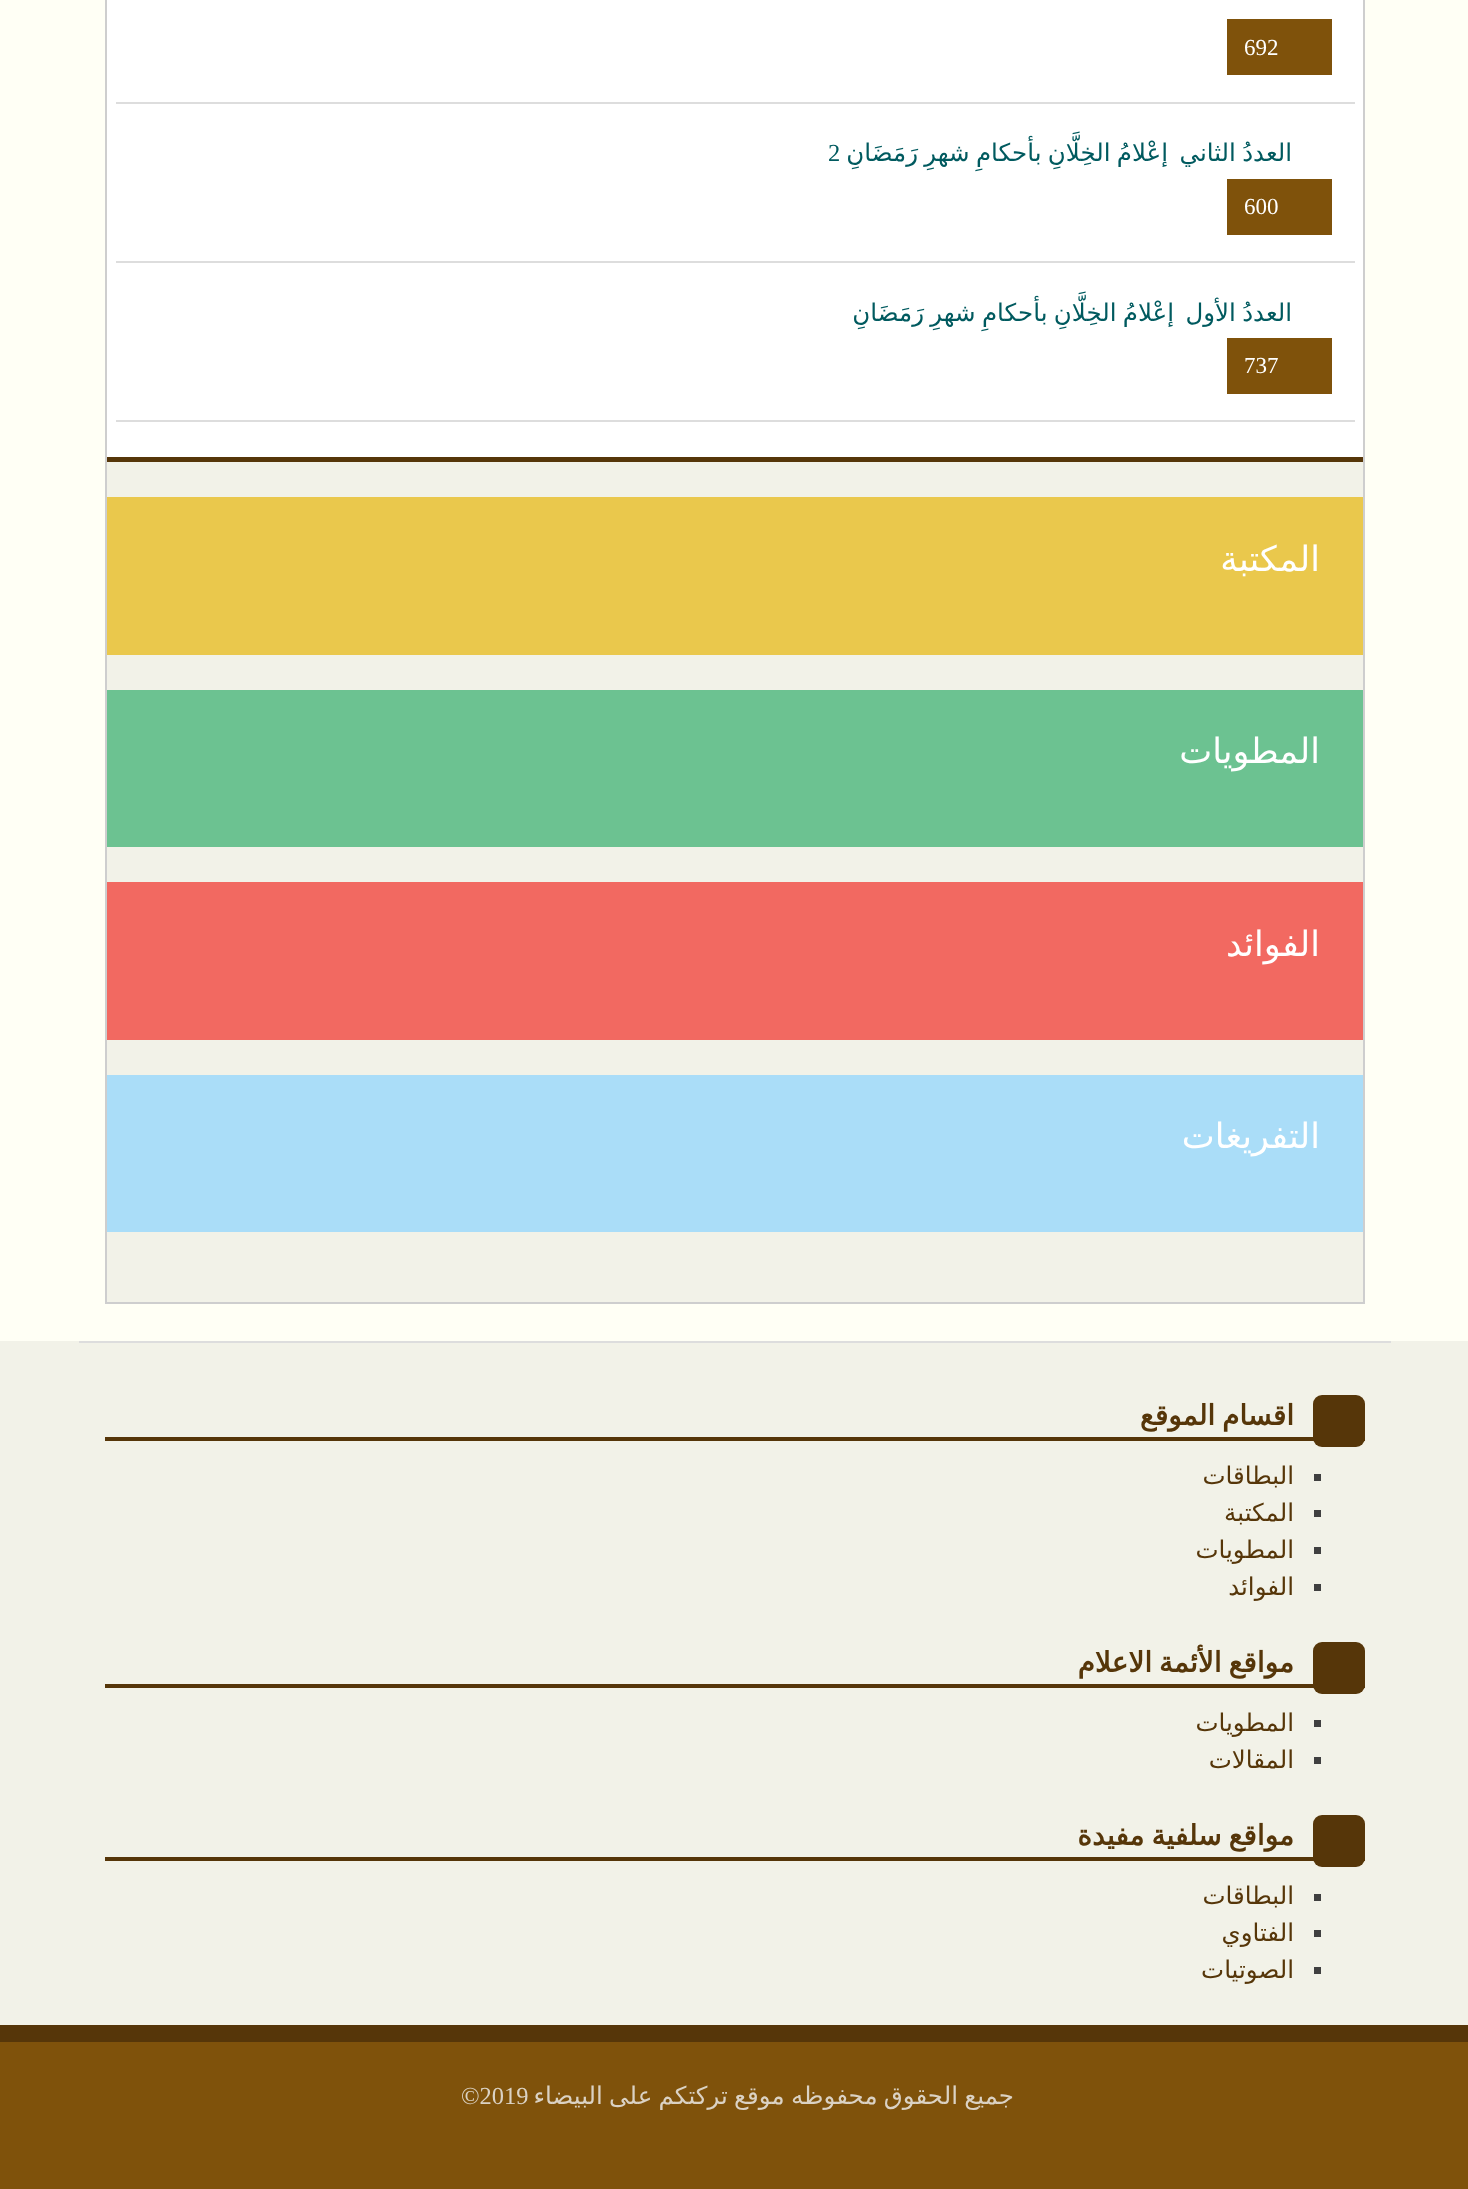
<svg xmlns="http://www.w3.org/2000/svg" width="1468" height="2189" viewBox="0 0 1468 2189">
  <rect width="100%" height="100%" fill="rgb(255,255,245)"/>
  <rect x="107" y="462" width="1256" height="840" fill="rgb(242,242,232)"/>
  <rect x="106" y="-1" width="1258" height="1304" fill="none" stroke="rgb(206,206,206)" stroke-width="2"/>
  <rect x="107" y="0" width="1256" height="457" fill="rgb(255,255,255)"/>
  <rect x="107" y="457" width="1256" height="5" fill="rgb(86,54,9)"/>
  <rect x="116" y="102" width="1239" height="2" fill="rgb(221,221,221)"/>
  <rect x="1227" y="19" width="105" height="56" fill="rgb(127,82,11)"/>
  <text x="1244" y="55" font-family="Liberation Serif" font-size="23" fill="rgb(255,255,255)">692</text>
  <rect x="116" y="261" width="1239" height="2" fill="rgb(221,221,221)"/>
  <g font-family="DejaVu Sans" font-size="24.5" direction="rtl" fill="rgb(0,90,95)">
    <text x="1292" y="161" word-spacing="-1.5">العددُ الثاني</text>
    <text x="1168" y="161" word-spacing="-1.5">إعْلامُ الخِلَّانِ بأحكامِ شهرِ رَمَضَانِ</text>
  </g>
  <text x="828" y="161" font-family="Liberation Serif" font-size="24.5" fill="rgb(0,90,95)">2</text>
  <rect x="1227" y="179" width="105" height="56" fill="rgb(127,82,11)"/>
  <text x="1244" y="214" font-family="Liberation Serif" font-size="23" fill="rgb(255,255,255)">600</text>
  <rect x="116" y="420" width="1239" height="2" fill="rgb(221,221,221)"/>
  <g font-family="DejaVu Sans" font-size="24.5" direction="rtl" fill="rgb(0,90,95)">
    <text x="1292" y="321" word-spacing="-1.5">العددُ الأول</text>
    <text x="1174" y="321" word-spacing="-1.5">إعْلامُ الخِلَّانِ بأحكامِ شهرِ رَمَضَانِ</text>
  </g>
  <rect x="1227" y="338" width="105" height="56" fill="rgb(127,82,11)"/>
  <text x="1244" y="373" font-family="Liberation Serif" font-size="23" fill="rgb(255,255,255)">737</text>
  <rect x="107" y="497" width="1256" height="158" fill="rgb(234,200,76)"/>
  <text x="1320" y="571" font-family="DejaVu Sans" font-size="35" direction="rtl" fill="rgb(255,255,255)">المكتبة</text>
  <rect x="107" y="690" width="1256" height="157" fill="rgb(108,194,145)"/>
  <text x="1320" y="763" font-family="DejaVu Sans" font-size="35" direction="rtl" fill="rgb(255,255,255)">المطويات</text>
  <rect x="107" y="882" width="1256" height="158" fill="rgb(242,105,97)"/>
  <text x="1320" y="956" font-family="DejaVu Sans" font-size="35" direction="rtl" fill="rgb(255,255,255)">الفوائد</text>
  <rect x="107" y="1075" width="1256" height="157" fill="rgb(170,221,248)"/>
  <text x="1320" y="1148" font-family="DejaVu Sans" font-size="35" direction="rtl" fill="rgb(255,255,255)">التفريغات</text>
  <rect x="0" y="1341" width="1468" height="684" fill="rgb(242,242,232)"/>
  <rect x="79" y="1341" width="1312" height="2" fill="rgb(221,221,221)"/>
  <rect x="105" y="1437" width="1260" height="4" fill="rgb(86,54,9)"/>
  <rect x="1313" y="1395" width="52" height="52" rx="9" fill="rgb(86,54,9)"/>
  <text x="1294" y="1425" word-spacing="-2" font-family="DejaVu Sans" font-size="28" font-weight="bold" direction="rtl" fill="rgb(86,54,9)">اقسام الموقع</text>
  <rect x="1314" y="1474" width="7" height="7" fill="rgb(64,64,64)"/>
  <text x="1294" y="1484" font-family="DejaVu Sans" font-size="24.5" direction="rtl" fill="rgb(86,54,9)">البطاقات</text>
  <rect x="1314" y="1510" width="7" height="7" fill="rgb(64,64,64)"/>
  <text x="1294" y="1521" font-family="DejaVu Sans" font-size="24.5" direction="rtl" fill="rgb(86,54,9)">المكتبة</text>
  <rect x="1314" y="1547" width="7" height="7" fill="rgb(64,64,64)"/>
  <text x="1294" y="1558" font-family="DejaVu Sans" font-size="24.5" direction="rtl" fill="rgb(86,54,9)">المطويات</text>
  <rect x="1314" y="1584" width="7" height="7" fill="rgb(64,64,64)"/>
  <text x="1294" y="1595" font-family="DejaVu Sans" font-size="24.5" direction="rtl" fill="rgb(86,54,9)">الفوائد</text>
  <rect x="105" y="1684" width="1260" height="4" fill="rgb(86,54,9)"/>
  <rect x="1313" y="1642" width="52" height="52" rx="9" fill="rgb(86,54,9)"/>
  <text x="1294" y="1672" word-spacing="-2" font-family="DejaVu Sans" font-size="28" font-weight="bold" direction="rtl" fill="rgb(86,54,9)">مواقع الأئمة الاعلام</text>
  <rect x="1314" y="1720" width="7" height="7" fill="rgb(64,64,64)"/>
  <text x="1294" y="1731" font-family="DejaVu Sans" font-size="24.5" direction="rtl" fill="rgb(86,54,9)">المطويات</text>
  <rect x="1314" y="1757" width="7" height="7" fill="rgb(64,64,64)"/>
  <text x="1294" y="1768" font-family="DejaVu Sans" font-size="24.5" direction="rtl" fill="rgb(86,54,9)">المقالات</text>
  <rect x="105" y="1857" width="1260" height="4" fill="rgb(86,54,9)"/>
  <rect x="1313" y="1815" width="52" height="52" rx="9" fill="rgb(86,54,9)"/>
  <text x="1294" y="1845" word-spacing="-2" font-family="DejaVu Sans" font-size="28" font-weight="bold" direction="rtl" fill="rgb(86,54,9)">مواقع سلفية مفيدة</text>
  <rect x="1314" y="1894" width="7" height="7" fill="rgb(64,64,64)"/>
  <text x="1294" y="1904" font-family="DejaVu Sans" font-size="24.5" direction="rtl" fill="rgb(86,54,9)">البطاقات</text>
  <rect x="1314" y="1930" width="7" height="7" fill="rgb(64,64,64)"/>
  <text x="1294" y="1941" font-family="DejaVu Sans" font-size="24.5" direction="rtl" fill="rgb(86,54,9)">الفتاوي</text>
  <rect x="1314" y="1967" width="7" height="7" fill="rgb(64,64,64)"/>
  <text x="1294" y="1978" font-family="DejaVu Sans" font-size="24.5" direction="rtl" fill="rgb(86,54,9)">الصوتيات</text>
  <rect x="0" y="2042" width="1468" height="147" fill="rgb(127,82,11)"/>
  <rect x="0" y="2025" width="1468" height="17" fill="rgb(86,54,9)"/>
  <text x="1014" y="2104" word-spacing="-1.5" font-family="DejaVu Sans" font-size="24.5" direction="rtl" fill="rgb(219,210,196)">جميع الحقوق محفوظه موقع تركتكم على البيضاء</text>
  <text x="461" y="2104" font-family="Liberation Serif" font-size="24.5" fill="rgb(219,210,196)">©2019</text>
</svg>
